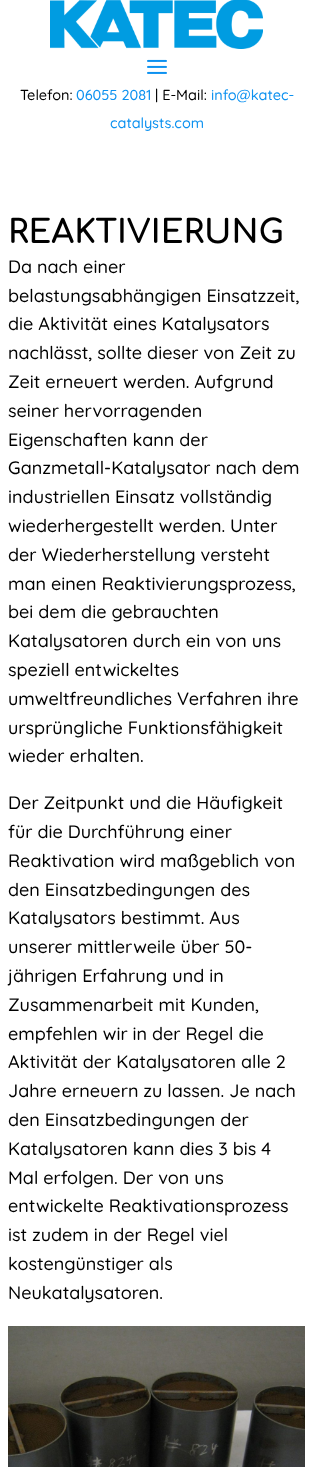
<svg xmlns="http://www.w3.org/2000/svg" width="313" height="1467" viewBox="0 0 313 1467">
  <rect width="100%" height="100%" fill="rgb(255,255,255)"/>
  <image x="50" y="0" width="213" height="49" href="pic1.png"/>
  <image x="147" y="59" width="20" height="15" href="pic2.png"/>
  <text x="20" y="100" font-family="Quicksand" font-size="14.5" font-weight="300" fill="rgb(0,0,0)">Telefon:</text>
  <text x="76" y="100" font-family="Quicksand" font-size="14.5" font-weight="300" fill="rgb(12,145,240)">06055 2081</text>
  <text x="155" y="100" font-family="Quicksand" font-size="14.5" font-weight="300" fill="rgb(0,0,0)">| E-Mail:</text>
  <g font-family="Quicksand" font-size="14.5" font-weight="300" fill="rgb(12,145,240)">
    <text x="211" y="100">info@katec-</text>
    <text x="110" y="128">catalysts.com</text>
  </g>
  <text x="8" y="243" font-family="Comfortaa" font-size="32.5" font-weight="bold" fill="rgb(0,0,0)">REAKTIVIERUNG</text>
  <g font-family="Quicksand" font-size="18" font-weight="300" fill="rgb(0,0,0)">
    <text>
      <tspan x="8" y="273">Da nach einer</tspan>
      <tspan x="8" y="302">belastungsabhängigen Einsatzzeit,</tspan>
      <tspan x="8" y="330">die Aktivität eines Katalysators</tspan>
      <tspan x="8" y="359">nachlässt, sollte dieser von Zeit zu</tspan>
      <tspan x="8" y="388">Zeit erneuert werden. Aufgrund</tspan>
      <tspan x="8" y="417">seiner hervorragenden</tspan>
      <tspan x="8" y="446">Eigenschaften kann der</tspan>
      <tspan x="8" y="474">Ganzmetall-Katalysator nach dem</tspan>
      <tspan x="8" y="503">industriellen Einsatz vollständig</tspan>
      <tspan x="8" y="532">wiederhergestellt werden. Unter</tspan>
      <tspan x="8" y="561">der Wiederherstellung versteht</tspan>
      <tspan x="8" y="590">man einen Reaktivierungsprozess,</tspan>
      <tspan x="8" y="618">bei dem die gebrauchten</tspan>
      <tspan x="8" y="647">Katalysatoren durch ein von uns</tspan>
      <tspan x="8" y="676">speziell entwickeltes</tspan>
      <tspan x="8" y="705">umweltfreundliches Verfahren ihre</tspan>
      <tspan x="8" y="734">ursprüngliche Funktionsfähigkeit</tspan>
      <tspan x="8" y="762">wieder erhalten.</tspan>
    </text>
    <text>
      <tspan x="8" y="809">Der Zeitpunkt und die Häufigkeit</tspan>
      <tspan x="8" y="838">für die Durchführung einer</tspan>
      <tspan x="8" y="867">Reaktivation wird maßgeblich von</tspan>
      <tspan x="8" y="896">den Einsatzbedingungen des</tspan>
      <tspan x="8" y="924">Katalysators bestimmt. Aus</tspan>
      <tspan x="8" y="953">unserer mittlerweile über 50-</tspan>
      <tspan x="8" y="982">jährigen Erfahrung und in</tspan>
      <tspan x="8" y="1011">Zusammenarbeit mit Kunden,</tspan>
      <tspan x="8" y="1040">empfehlen wir in der Regel die</tspan>
      <tspan x="8" y="1068">Aktivität der Katalysatoren alle 2</tspan>
      <tspan x="8" y="1097">Jahre erneuern zu lassen. Je nach</tspan>
      <tspan x="8" y="1126">den Einsatzbedingungen der</tspan>
      <tspan x="8" y="1155">Katalysatoren kann dies 3 bis 4</tspan>
      <tspan x="8" y="1184">Mal erfolgen. Der von uns</tspan>
      <tspan x="8" y="1212">entwickelte Reaktivationsprozess</tspan>
      <tspan x="8" y="1241">ist zudem in der Regel viel</tspan>
      <tspan x="8" y="1270">kostengünstiger als</tspan>
      <tspan x="8" y="1299">Neukatalysatoren.</tspan>
    </text>
  </g>
  <image x="8" y="1326" width="297" height="141" href="pic3.png"/>
</svg>
